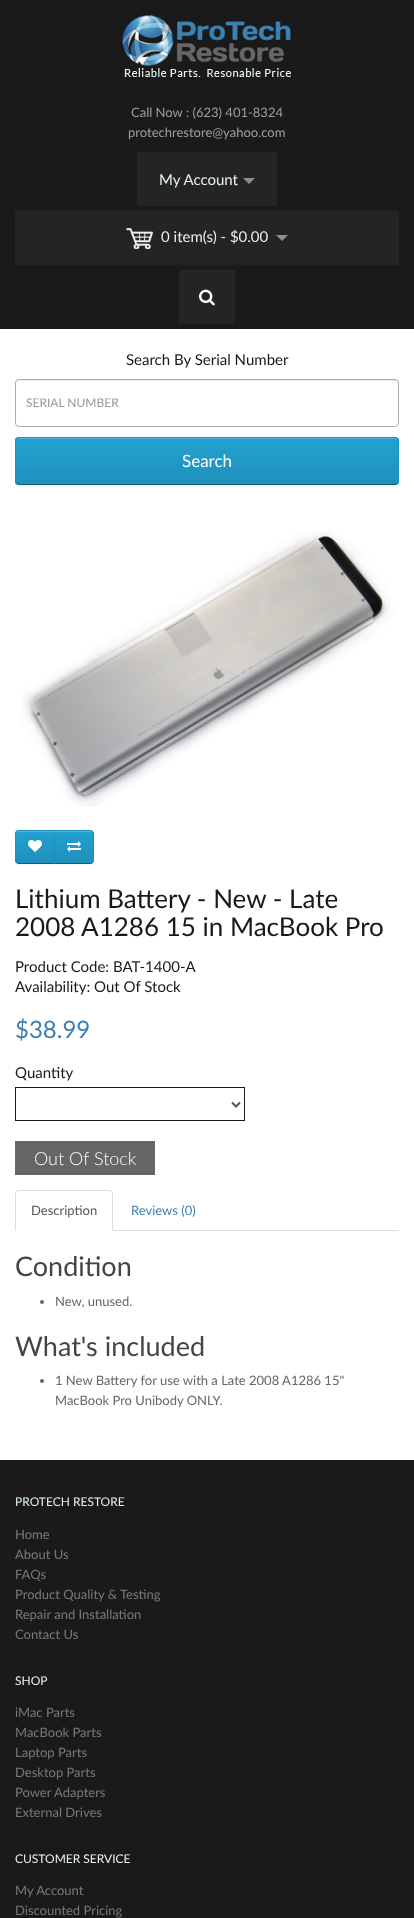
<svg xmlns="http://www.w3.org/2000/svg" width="414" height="1918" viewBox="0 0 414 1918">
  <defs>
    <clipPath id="clip1"><rect x="15" y="437" width="384" height="48" rx="4"/></clipPath>
    <linearGradient id="g1" gradientUnits="userSpaceOnUse" x1="207" y1="438" x2="207" y2="484"><stop offset="0" stop-color="rgb(35,161,209)"/><stop offset="1" stop-color="rgb(31,144,187)"/></linearGradient>
    <clipPath id="clip2"><path d="M19 830H55V864H19C17 864 15 862 15 860V834C15 832 17 830 19 830Z"/></clipPath>
    <linearGradient id="g2" gradientUnits="userSpaceOnUse" x1="35" y1="831" x2="35" y2="863"><stop offset="0" stop-color="rgb(35,161,209)"/><stop offset="1" stop-color="rgb(31,144,187)"/></linearGradient>
    <clipPath id="clip3"><path d="M54 830H90C92 830 94 832 94 834V860C94 862 92 864 90 864H54Z"/></clipPath>
    <linearGradient id="g3" gradientUnits="userSpaceOnUse" x1="74" y1="831" x2="74" y2="863"><stop offset="0" stop-color="rgb(35,161,209)"/><stop offset="1" stop-color="rgb(31,144,187)"/></linearGradient>
  </defs>
  <rect width="100%" height="100%" fill="rgb(255,255,255)"/>
  <rect x="0" y="0" width="414" height="329" fill="rgb(26,26,26)"/>
  <image x="122" y="15" width="169" height="62" href="pic1.png"/>
  <g font-family="Lato" font-size="13" fill="rgb(159,159,159)">
    <text x="131" y="117">Call Now : (623) 401-8324</text>
    <text x="128" y="137">protechrestore@yahoo.com</text>
  </g>
  <rect x="137" y="152" width="140" height="54" fill="rgb(36,36,36)"/>
  <text x="159" y="185" font-family="Lato" font-size="15" fill="rgb(229,241,245)">My Account</text>
  <path d="M243 178H255L249 184Z" fill="rgb(141,143,143)"/>
  <rect x="15" y="211" width="384" height="54" fill="rgb(36,36,36)"/>
  <image x="126" y="228" width="27" height="21" href="pic2.png"/>
  <text x="161" y="242" font-family="Lato" font-size="15" fill="rgb(229,241,245)">0 item(s) - $0.00</text>
  <path d="M276 235H288L282 241Z" fill="rgb(141,143,143)"/>
  <rect x="179" y="270" width="56" height="54" fill="rgb(36,36,36)"/>
  <image x="199" y="289" width="16" height="17" href="pic3.png"/>
  <text x="126" y="365" font-family="Lato" font-size="15" fill="rgb(25,25,25)">Search By Serial Number</text>
  <path d="M19 381H395C397 381 398 382 398 384C398 382 397 380 395 380H19L17 381L16 384C16 382 17 381 19 381Z" fill="rgb(236,236,236)"/>
  <rect x="15.5" y="379.5" width="383" height="47" rx="3.5" fill="none" stroke="rgb(174,174,174)"/>
  <text x="26" y="407" font-family="Lato" font-size="12" fill="rgb(153,153,153)">SERIAL NUMBER</text>
  <rect x="15" y="438" width="384" height="48" rx="4" fill="rgba(0,0,0,0.05)" filter="blur(1px)"/>
  <rect x="15" y="437" width="384" height="48" rx="4" fill="rgb(34,154,200)"/>
  <g clip-path="url(#clip1)">
    <rect x="15" y="438" width="384" height="46" fill="url(#g1)"/>
  </g>
  <path d="M19 439H395C397 439 398 440 398 442C398 440 397 438 395 438H19L17 439L16 442C16 440 17 439 19 439Z" fill="rgb(79,180,218)"/>
  <path d="M397.5 483.5L395 484.5H19L16.5 483.5" fill="none" stroke="rgb(20,94,122)"/>
  <path d="M16.5 483.5C16 483 15.5 482 15.5 481V441C15.5 440 16 439 16.5 438.5C17 438 18 437.5 19 437.5H395C396 437.5 397 438 397.5 438.5C398 439 398.5 440 398.5 441V481C398.5 482 398 483 397.5 483.5" fill="none" stroke="rgb(31,144,187)"/>
  <text x="182" y="467" font-family="Lato" font-size="17" fill="rgb(255,255,255)">Search</text>
  <image x="21" y="531" width="374" height="275" href="pic4.png"/>
  <rect x="15" y="831" width="40" height="34" rx="4" fill="rgba(0,0,0,0.05)" filter="blur(1px)"/>
  <g clip-path="url(#clip2)">
    <rect x="15" y="831" width="39" height="32" fill="url(#g2)"/>
  </g>
  <path d="M19 832H54V831H19C17.5 831 16 832.5 16 834V835C16 833 17 832 19 832Z" fill="rgb(79,180,218)"/>
  <path d="M19 830C18 830 17 830.5 16 831L17 832C17 831 18 831 19 831H54L55 830Z" fill="rgb(31,144,187)"/>
  <path d="M55 864L54 863H19C18 863 17 863 17 862L16 863C17 863.5 18 864 19 864Z" fill="rgb(20,94,122)"/>
  <path d="M15 834V860C15 861 15.5 862 16 863L17 862C16 862 16 861 16 860V834C16 833 16 832 17 832L16 831C15.5 832 15 833 15 834Z" fill="rgb(31,144,187)"/>
  <image x="28" y="840" width="14" height="12" href="pic5.png"/>
  <rect x="54" y="831" width="40" height="34" rx="4" fill="rgba(0,0,0,0.05)" filter="blur(1px)"/>
  <g clip-path="url(#clip3)">
    <rect x="55" y="831" width="39" height="32" fill="url(#g3)"/>
  </g>
  <path d="M55 832H90C92 832 93 833 93 835V834C93 832.5 91.5 831 90 831H55Z" fill="rgb(79,180,218)"/>
  <path d="M54 830L55 831H90C91 831 92 831 92 832L93 831C92 830.5 91 830 90 830Z" fill="rgb(31,144,187)"/>
  <path d="M94 860V834C94 833 93.5 832 93 831L92 832C93 832 93 833 93 834V860C93 861 93 862 92 862L93 863C93.5 862 94 861 94 860Z" fill="rgb(31,144,187)"/>
  <path d="M90 864C91 864 92 863.5 93 863L92 862C92 863 91 863 90 863H55L54 864Z" fill="rgb(20,94,122)"/>
  <path d="M54 830V864L55 863V831Z" fill="rgb(31,144,187)"/>
  <image x="67" y="841" width="14" height="11" href="pic6.png"/>
  <g font-family="Lato" font-size="26" fill="rgb(25,25,25)">
    <text>
      <tspan x="15" y="908">Lithium Battery - New - Late</tspan>
      <tspan x="15" y="936">2008 A1286 15 in MacBook Pro</tspan>
    </text>
  </g>
  <g font-family="Lato" font-size="15" fill="rgb(25,25,25)">
    <text>
      <tspan x="15" y="972">Product Code: BAT-1400-A</tspan>
      <tspan x="15" y="992">Availability: Out Of Stock</tspan>
    </text>
  </g>
  <text x="15" y="1038" font-family="Lato" font-size="24" fill="rgb(59,128,177)">$38.99</text>
  <text x="15" y="1078" font-family="Lato" font-size="15" fill="rgb(25,25,25)">Quantity</text>
  <rect x="15.5" y="1087.5" width="229" height="33" fill="none" stroke="rgb(26,26,26)"/>
  <path d="M232 1102.5L236 1106.5L240 1102.5" fill="none" stroke="rgb(85,85,85)" stroke-width="2"/>
  <rect x="15" y="1141" width="140" height="34" fill="rgb(102,102,102)"/>
  <text x="34" y="1165" font-family="Lato" font-size="18" font-weight="300" fill="rgb(255,255,255)">Out Of Stock</text>
  <rect x="113" y="1230" width="286" height="1" fill="rgb(221,221,221)"/>
  <path d="M19 1190L16 1191L17 1192L19 1191H109L111 1192L112 1191L109 1190Z" fill="rgb(221,221,221)"/>
  <path d="M113 1231V1194C113 1193 112.5 1192 112 1191L111 1192C112 1192 112 1193 112 1194V1230Z" fill="rgb(221,221,221)"/>
  <path d="M15 1231L16 1230V1194C16 1193 16 1192 17 1192L16 1191C15.5 1192 15 1193 15 1194Z" fill="rgb(221,221,221)"/>
  <text x="31" y="1215" font-family="Lato" font-size="13" fill="rgb(85,85,85)">Description</text>
  <text x="131" y="1215" font-family="Lato" font-size="13" fill="rgb(59,128,177)">Reviews (0)</text>
  <text x="15" y="1276" font-family="Lato" font-size="27" fill="rgb(68,68,68)">Condition</text>
  <circle cx="42" cy="1302" r="2" fill="rgb(102,102,102)"/>
  <text x="55" y="1306" font-family="Lato" font-size="13" fill="rgb(102,102,102)">New, unused.</text>
  <text x="15" y="1356" font-family="Lato" font-size="27" fill="rgb(68,68,68)">What's included</text>
  <circle cx="42" cy="1381" r="2" fill="rgb(102,102,102)"/>
  <g font-family="Lato" font-size="13" fill="rgb(102,102,102)">
    <text>
      <tspan x="55" y="1385">1 New Battery for use with a Late 2008 A1286 15"</tspan>
      <tspan x="55" y="1405">MacBook Pro Unibody ONLY.</tspan>
    </text>
  </g>
  <rect x="0" y="1460" width="414" height="458" fill="rgb(26,26,26)"/>
  <text x="15" y="1506" font-family="Lato" font-size="12" fill="rgb(229,241,245)">PROTECH RESTORE</text>
  <g font-family="Lato" font-size="13" fill="rgb(121,121,121)">
    <text>
      <tspan x="15" y="1539">Home</tspan>
      <tspan x="15" y="1559">About Us</tspan>
      <tspan x="15" y="1579">FAQs</tspan>
      <tspan x="15" y="1599">Product Quality &amp; Testing</tspan>
      <tspan x="15" y="1619">Repair and Installation</tspan>
      <tspan x="15" y="1639">Contact Us</tspan>
    </text>
  </g>
  <text x="15" y="1685" font-family="Lato" font-size="12" fill="rgb(229,241,245)">SHOP</text>
  <g font-family="Lato" font-size="13" fill="rgb(121,121,121)">
    <text>
      <tspan x="15" y="1717">iMac Parts</tspan>
      <tspan x="15" y="1737">MacBook Parts</tspan>
      <tspan x="15" y="1757">Laptop Parts</tspan>
      <tspan x="15" y="1777">Desktop Parts</tspan>
      <tspan x="15" y="1797">Power Adapters</tspan>
      <tspan x="15" y="1817">External Drives</tspan>
    </text>
  </g>
  <text x="15" y="1863" font-family="Lato" font-size="12" fill="rgb(229,241,245)">CUSTOMER SERVICE</text>
  <g font-family="Lato" font-size="13" fill="rgb(121,121,121)">
    <text>
      <tspan x="15" y="1895">My Account</tspan>
      <tspan x="15" y="1915">Discounted Pricing</tspan>
    </text>
  </g>
</svg>
